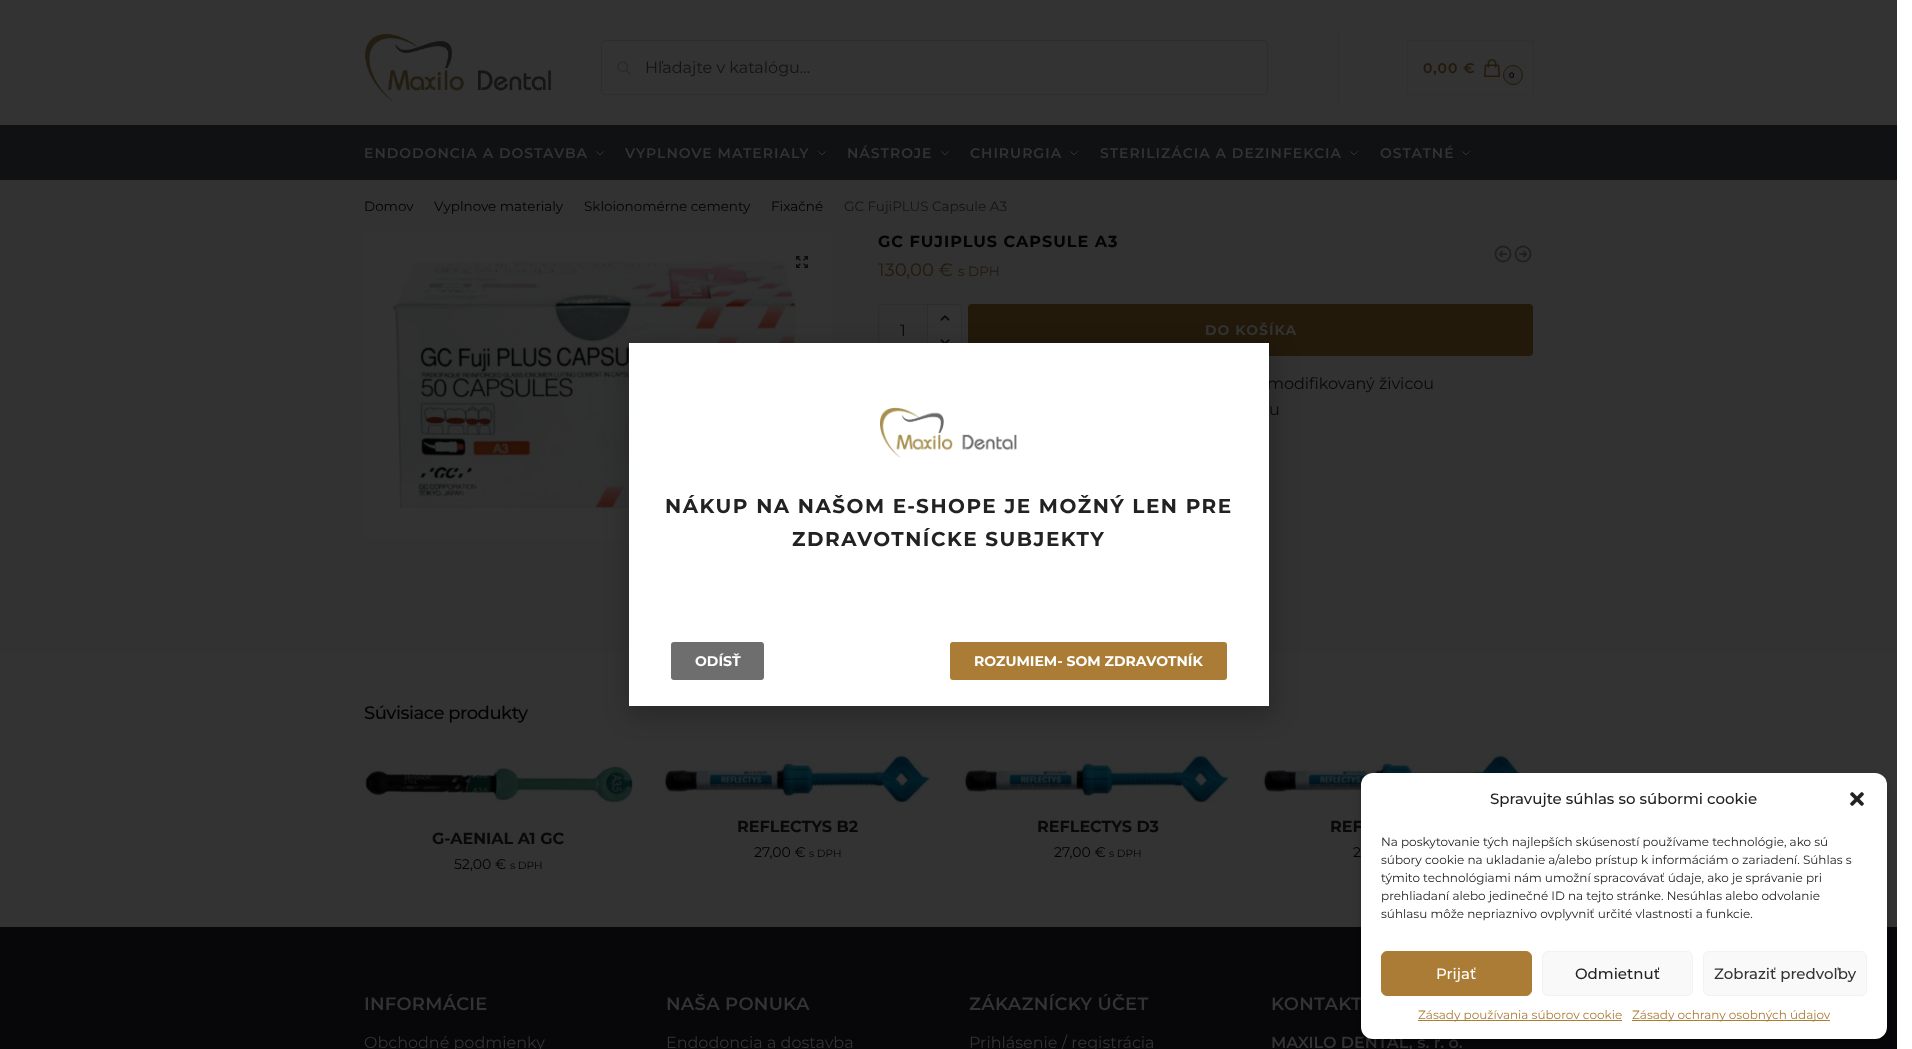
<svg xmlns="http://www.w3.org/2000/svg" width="1912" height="1049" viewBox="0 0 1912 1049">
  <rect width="100%" height="100%" fill="rgb(255,255,255)"/>
  <rect x="0" y="0" width="1897" height="125" fill="rgb(51,51,51)"/>
  <image x="365" y="33" width="186" height="69" href="pic1.png"/>
  <rect x="601.5" y="40.5" width="666" height="54" rx="4.5" fill="none" stroke="rgb(45,45,45)"/>
  <image x="617" y="61" width="14" height="14" href="pic2.png"/>
  <text x="645" y="73" font-family="Montserrat" font-size="16" fill="rgb(20,20,20)">Hľadajte v katalógu...</text>
  <rect x="1338" y="28" width="1" height="77" fill="rgb(48,48,48)"/>
  <rect x="1407.5" y="40.5" width="126" height="54" rx="1.5" fill="none" stroke="rgb(48,48,48)"/>
  <text x="1423" y="73" font-family="Montserrat" font-size="14" font-weight="600" letter-spacing="1" fill="rgb(34,25,11)">0,00 €</text>
  <image x="1484" y="59" width="16" height="18" href="pic3.png"/>
  <circle cx="1513" cy="75" r="9.5" fill="rgb(48,48,48)" stroke="rgb(34,25,11)"/>
  <text x="1509" y="78" font-family="Montserrat" font-size="8" font-weight="600" letter-spacing="1" fill="rgb(3,3,3)">0</text>
  <rect x="0" y="125" width="1897" height="55" fill="rgb(16,17,19)"/>
  <text x="364" y="158" font-family="Montserrat" font-size="14" font-weight="600" letter-spacing="1" fill="rgb(51,51,51)">ENDODONCIA A DOSTAVBA</text>
  <path d="M603.5 151.5L600 155L596.5 151.5" fill="none" stroke="rgb(51,51,51)" stroke-linecap="round" stroke-linejoin="round"/>
  <text x="625" y="158" font-family="Montserrat" font-size="14" font-weight="600" letter-spacing="1" fill="rgb(51,51,51)">VYPLNOVE MATERIALY</text>
  <path d="M825.5 151.5L822 155L818.5 151.5" fill="none" stroke="rgb(51,51,51)" stroke-linecap="round" stroke-linejoin="round"/>
  <text x="847" y="158" font-family="Montserrat" font-size="14" font-weight="600" letter-spacing="1" fill="rgb(51,51,51)">NÁSTROJE</text>
  <path d="M948.5 151.5L945 155L941.5 151.5" fill="none" stroke="rgb(51,51,51)" stroke-linecap="round" stroke-linejoin="round"/>
  <text x="970" y="158" font-family="Montserrat" font-size="14" font-weight="600" letter-spacing="1" fill="rgb(51,51,51)">CHIRURGIA</text>
  <path d="M1077.5 151.5L1074 155L1070.5 151.5" fill="none" stroke="rgb(51,51,51)" stroke-linecap="round" stroke-linejoin="round"/>
  <text x="1100" y="158" font-family="Montserrat" font-size="14" font-weight="600" letter-spacing="1" fill="rgb(51,51,51)">STERILIZÁCIA A DEZINFEKCIA</text>
  <path d="M1357.5 151.5L1354 155L1350.5 151.5" fill="none" stroke="rgb(51,51,51)" stroke-linecap="round" stroke-linejoin="round"/>
  <text x="1380" y="158" font-family="Montserrat" font-size="14" font-weight="600" letter-spacing="1" fill="rgb(51,51,51)">OSTATNÉ</text>
  <path d="M1469.5 151.5L1466 155L1462.5 151.5" fill="none" stroke="rgb(51,51,51)" stroke-linecap="round" stroke-linejoin="round"/>
  <rect x="0" y="180" width="1897" height="474" fill="rgb(50,50,50)"/>
  <g font-family="Montserrat" font-size="13.5" fill="rgb(3,3,3)">
    <text x="364" y="211">Domov</text>
    <text x="434" y="211">Vyplnove materialy</text>
    <text x="584" y="211">Skloionomérne cementy</text>
    <text x="771" y="211">Fixačné</text>
  </g>
  <text x="844" y="211" font-family="Montserrat" font-size="13.5" fill="rgb(20,20,20)">GC FujiPLUS Capsule A3</text>
  <image x="364" y="232" width="468" height="307" href="pic4.png"/>
  <image x="796" y="256" width="12" height="12" href="pic5.png"/>
  <text x="878" y="247" font-family="Montserrat" font-size="16" font-weight="bold" letter-spacing="1" fill="rgb(3,3,3)">GC FUJIPLUS CAPSULE A3</text>
  <image x="1494" y="245" width="18" height="18" href="pic6.png"/>
  <image x="1514" y="245" width="18" height="18" href="pic7.png"/>
  <text x="878" y="276" font-family="Montserrat" font-size="18" fill="rgb(34,25,11)">130,00 €</text>
  <text x="958" y="276" font-family="Montserrat" font-size="13.5" fill="rgb(34,25,11)">s DPH</text>
  <path d="M882 304.5H927.5V355.5H882C880 355.5 878.5 354 878.5 352V308C878.5 306 880 304.5 882 304.5Z" fill="none" stroke="rgb(45,45,45)"/>
  <text x="900" y="336" font-family="Montserrat" font-size="16" fill="rgb(9,9,10)">1</text>
  <path d="M927.5 304.5H958C960 304.5 961.5 306 961.5 308V352C961.5 354 960 355.5 958 355.5H927.5Z" fill="rgb(51,51,51)" stroke="rgb(45,45,45)"/>
  <image x="940" y="315" width="10" height="6" href="pic8.png"/>
  <image x="940" y="339" width="10" height="4" href="pic9.png"/>
  <rect x="968" y="304" width="565" height="52" rx="4" fill="rgb(34,25,11)"/>
  <text x="1205" y="335" font-family="Montserrat" font-size="14" font-weight="bold" letter-spacing="1" fill="rgb(51,51,51)">DO KOŠÍKA</text>
  <g font-family="Montserrat" font-size="16" fill="rgb(9,9,10)">
    <text x="1267" y="389">modifikovaný živicou</text>
    <text x="1269" y="415">u</text>
  </g>
  <rect x="0" y="654" width="1897" height="273" fill="rgb(51,51,51)"/>
  <text x="364" y="719" font-family="Montserrat" font-size="18" font-weight="500" letter-spacing="-0.5" fill="rgb(3,3,3)">Súvisiace produkty</text>
  <image x="364" y="766" width="269" height="41" href="pic10.png"/>
  <text x="432" y="844" font-family="Montserrat" font-size="16" font-weight="bold" fill="rgb(9,9,10)">G-AENIAL A1 GC</text>
  <text x="454" y="869" font-family="Montserrat" font-size="14" fill="rgb(3,3,3)">52,00 €</text>
  <text x="510" y="869" font-family="Montserrat" font-size="10.5" fill="rgb(3,3,3)">s DPH</text>
  <image x="663" y="753" width="270" height="50" href="pic11.png"/>
  <text x="737" y="832" font-family="Montserrat" font-size="16" font-weight="bold" fill="rgb(9,9,10)">REFLECTYS B2</text>
  <text x="754" y="857" font-family="Montserrat" font-size="14" fill="rgb(3,3,3)">27,00 €</text>
  <text x="809" y="857" font-family="Montserrat" font-size="10.5" fill="rgb(3,3,3)">s DPH</text>
  <image x="963" y="753" width="269" height="50" href="pic12.png"/>
  <text x="1037" y="832" font-family="Montserrat" font-size="16" font-weight="bold" fill="rgb(9,9,10)">REFLECTYS D3</text>
  <text x="1054" y="857" font-family="Montserrat" font-size="14" fill="rgb(3,3,3)">27,00 €</text>
  <text x="1109" y="857" font-family="Montserrat" font-size="10.5" fill="rgb(3,3,3)">s DPH</text>
  <image x="1262" y="753" width="270" height="50" href="pic11.png"/>
  <text x="1330" y="832" font-family="Montserrat" font-size="16" font-weight="bold" fill="rgb(9,9,10)">REF</text>
  <text x="1353" y="857" font-family="Montserrat" font-size="14" fill="rgb(3,3,3)">2</text>
  <rect x="0" y="927" width="1897" height="122" fill="rgb(7,7,9)"/>
  <text x="364" y="1010" font-family="Montserrat" font-size="18" font-weight="600" letter-spacing="0.25" fill="rgb(51,51,51)">INFORMÁCIE</text>
  <text x="364" y="1048" font-family="Montserrat" font-size="16" fill="rgb(51,51,51)">Obchodné podmienky</text>
  <text x="666" y="1010" font-family="Montserrat" font-size="18" font-weight="600" letter-spacing="0.25" fill="rgb(51,51,51)">NAŠA PONUKA</text>
  <text x="666" y="1048" font-family="Montserrat" font-size="16" fill="rgb(51,51,51)">Endodoncia a dostavba</text>
  <text x="969" y="1010" font-family="Montserrat" font-size="18" font-weight="600" letter-spacing="0.25" fill="rgb(51,51,51)">ZÁKAZNÍCKY ÚČET</text>
  <text x="969" y="1048" font-family="Montserrat" font-size="16" fill="rgb(51,51,51)">Prihlásenie / registrácia</text>
  <text x="1271" y="1010" font-family="Montserrat" font-size="18" font-weight="600" letter-spacing="0.25" fill="rgb(51,51,51)">KONTAKT</text>
  <text x="1271" y="1048" font-family="Montserrat" font-size="16" font-weight="600" fill="rgb(51,51,51)">MAXILO DENTAL, s. r. o.</text>
  <rect x="628" y="348" width="646" height="369" fill="rgba(0,0,0,0.2)" filter="blur(11.5px)"/>
  <rect x="629" y="343" width="640" height="363" fill="rgb(255,255,255)"/>
  <image x="880" y="407" width="137" height="51" href="pic13.png"/>
  <g font-family="Montserrat" font-size="20" font-weight="bold" letter-spacing="1.5" fill="rgb(34,34,34)">
    <text x="665" y="513">NÁKUP NA NAŠOM E-SHOPE JE MOŽNÝ LEN PRE</text>
    <text x="792" y="546">ZDRAVOTNÍCKE SUBJEKTY</text>
  </g>
  <rect x="671" y="642" width="93" height="38" rx="3" fill="rgb(110,110,110)"/>
  <text x="695" y="666" font-family="Montserrat" font-size="14" font-weight="bold" fill="rgb(255,255,255)">ODÍSŤ</text>
  <rect x="950" y="642" width="277" height="38" rx="3" fill="rgb(171,124,53)"/>
  <text x="974" y="666" font-family="Montserrat" font-size="14" font-weight="bold" fill="rgb(255,255,255)">ROZUMIEM- SOM ZDRAVOTNÍK</text>
  <rect x="1361" y="779" width="526" height="266" rx="12" fill="rgba(0,0,0,0.23)" filter="blur(3px)"/>
  <rect x="1361" y="773" width="526" height="266" rx="12" fill="rgb(255,255,255)"/>
  <text x="1490" y="804" font-family="Montserrat" font-size="15" font-weight="500" fill="rgb(34,34,34)">Spravujte súhlas so súbormi cookie</text>
  <image x="1850" y="792" width="14" height="14" href="pic14.png"/>
  <g font-family="Montserrat" font-size="12" fill="rgb(34,34,34)">
    <text>
      <tspan x="1381" y="846">Na poskytovanie tých najlepších skúseností používame technológie, ako sú</tspan>
      <tspan x="1381" y="864">súbory cookie na ukladanie a/alebo prístup k informáciám o zariadení. Súhlas s</tspan>
      <tspan x="1381" y="882">týmito technológiami nám umožní spracovávať údaje, ako je správanie pri</tspan>
      <tspan x="1381" y="900">prehliadaní alebo jedinečné ID na tejto stránke. Nesúhlas alebo odvolanie</tspan>
      <tspan x="1381" y="918">súhlasu môže nepriaznivo ovplyvniť určité vlastnosti a funkcie.</tspan>
    </text>
  </g>
  <rect x="1381.5" y="951.5" width="150" height="44" rx="5.5" fill="rgb(171,124,53)" stroke="rgb(171,124,53)"/>
  <text x="1436" y="979" font-family="Montserrat" font-size="15" font-weight="500" fill="rgb(255,255,255)">Prijať</text>
  <rect x="1542.5" y="951.5" width="150" height="44" rx="5.5" fill="rgb(249,249,249)" stroke="rgb(242,242,242)"/>
  <text x="1575" y="979" font-family="Montserrat" font-size="15" font-weight="500" fill="rgb(34,34,34)">Odmietnuť</text>
  <rect x="1703.5" y="951.5" width="163" height="44" rx="5.5" fill="rgb(249,249,249)" stroke="rgb(242,242,242)"/>
  <text x="1714" y="979" font-family="Montserrat" font-size="15" font-weight="500" fill="rgb(51,51,51)">Zobraziť predvoľby</text>
  <rect x="1418" y="1020" width="204" height="1" fill="rgb(171,124,53)"/>
  <text x="1418" y="1019" font-family="Montserrat" font-size="12" fill="rgb(171,124,53)">Zásady používania súborov cookie</text>
  <rect x="1632" y="1020" width="198" height="1" fill="rgb(171,124,53)"/>
  <text x="1632" y="1019" font-family="Montserrat" font-size="12" fill="rgb(171,124,53)">Zásady ochrany osobných údajov</text>
</svg>
